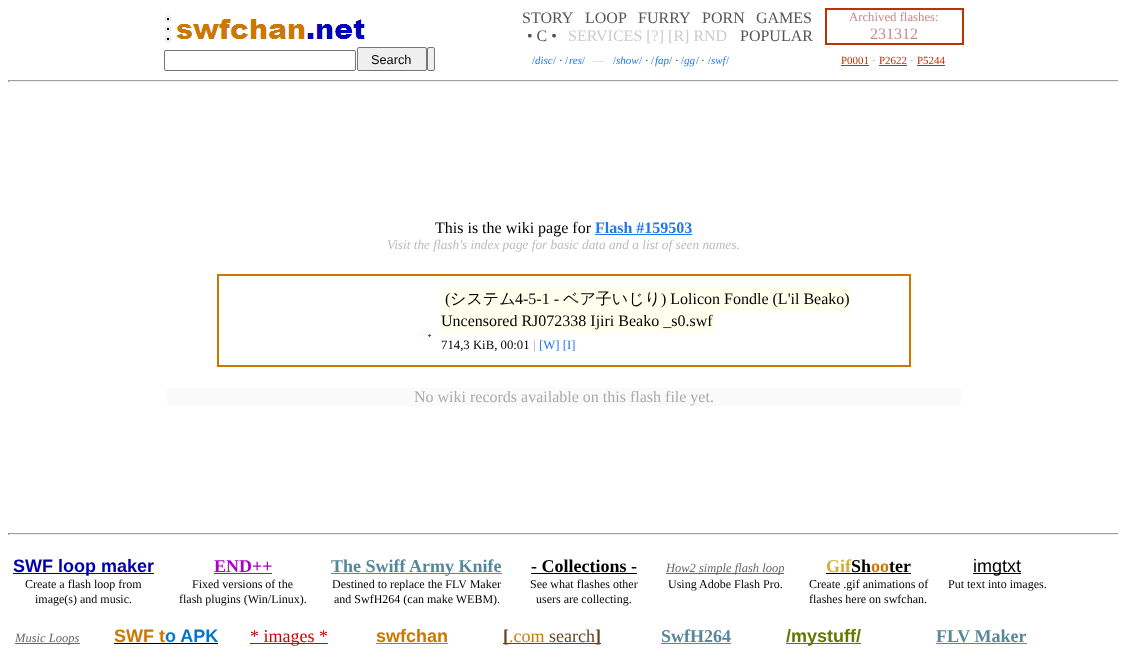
<svg xmlns="http://www.w3.org/2000/svg" width="1127" height="652" viewBox="0 0 1127 652">
  <rect width="100%" height="100%" fill="rgb(255,255,255)"/>
  <image x="164" y="15" width="8" height="8" href="pic1.png"/>
  <image x="164" y="25" width="8" height="8" href="pic1.png"/>
  <image x="164" y="35" width="8" height="8" href="pic1.png"/>
  <image x="176" y="19" width="129" height="20" href="pic2.png"/>
  <image x="307" y="19" width="58" height="20" href="pic3.png"/>
  <g font-family="Liberation Serif" font-size="16" fill="rgb(85,85,85)">
    <text x="522" y="23">STORY</text>
    <text x="585" y="23">LOOP</text>
    <text x="638" y="23">FURRY</text>
    <text x="702" y="23">PORN</text>
    <text x="756" y="23">GAMES</text>
    <text x="527" y="41">• C •</text>
  </g>
  <text x="568" y="41" font-family="Liberation Serif" font-size="16" fill="rgb(204,204,204)">SERVICES [?] [R] RND</text>
  <text x="740" y="41" font-family="Liberation Serif" font-size="16" fill="rgb(85,85,85)">POPULAR</text>
  <rect x="826" y="9" width="137" height="35" fill="none" stroke="rgb(187,51,0)" stroke-width="2"/>
  <text x="849" y="21" font-family="Liberation Serif" font-size="12.75" fill="rgb(204,136,136)">Archived flashes:</text>
  <text x="870" y="39" font-family="Liberation Serif" font-size="16" fill="rgb(204,136,136)">231312</text>
  <rect x="164.5" y="50.5" width="191" height="20" rx="1.5" fill="none" stroke="rgb(118,118,118)"/>
  <rect x="357.5" y="47.5" width="69" height="23" rx="1.5" fill="rgb(239,239,239)" stroke="rgb(118,118,118)"/>
  <text x="371" y="64" font-family="Liberation Sans" font-size="12.75" fill="rgb(0,0,0)">Search</text>
  <rect x="427.5" y="47.5" width="7" height="23" rx="1.5" fill="rgb(239,239,239)" stroke="rgb(118,118,118)"/>
  <text x="532" y="64" font-family="Liberation Serif" font-size="11" fill="rgb(34,119,238)">/</text>
  <text x="535" y="64" font-family="Liberation Serif" font-size="11" font-style="italic" fill="rgb(34,119,238)">disc</text>
  <g font-family="Liberation Serif" font-size="11" fill="rgb(34,119,238)">
    <text x="553" y="64">/</text>
    <text x="565" y="64">/</text>
  </g>
  <text x="569" y="64" font-family="Liberation Serif" font-size="11" font-style="italic" fill="rgb(34,119,238)">res</text>
  <g font-family="Liberation Serif" font-size="11" fill="rgb(34,119,238)">
    <text x="582" y="64">/</text>
    <text x="613" y="64">/</text>
  </g>
  <text x="616" y="64" font-family="Liberation Serif" font-size="11" font-style="italic" fill="rgb(34,119,238)">show</text>
  <g font-family="Liberation Serif" font-size="11" fill="rgb(34,119,238)">
    <text x="639" y="64">/</text>
    <text x="651" y="64">/</text>
  </g>
  <text x="655" y="64" font-family="Liberation Serif" font-size="11" font-style="italic" fill="rgb(34,119,238)">fap</text>
  <g font-family="Liberation Serif" font-size="11" fill="rgb(34,119,238)">
    <text x="669" y="64">/</text>
    <text x="681" y="64">/</text>
  </g>
  <text x="684" y="64" font-family="Liberation Serif" font-size="11" font-style="italic" fill="rgb(34,119,238)">gg</text>
  <g font-family="Liberation Serif" font-size="11" fill="rgb(34,119,238)">
    <text x="696" y="64">/</text>
    <text x="708" y="64">/</text>
  </g>
  <text x="711" y="64" font-family="Liberation Serif" font-size="11" font-style="italic" fill="rgb(34,119,238)">swf</text>
  <g font-family="Liberation Serif" font-size="11" fill="rgb(0,0,0)">
    <text x="559" y="64">·</text>
    <text x="645" y="64">·</text>
    <text x="675" y="64">·</text>
    <text x="701" y="64">·</text>
  </g>
  <text x="726" y="64" font-family="Liberation Serif" font-size="11" fill="rgb(34,119,238)">/</text>
  <text x="593" y="64" font-family="Liberation Serif" font-size="11" fill="rgb(204,204,204)">—</text>
  <text x="841" y="64" font-family="Liberation Serif" font-size="11" fill="rgb(187,51,0)">P0001</text>
  <rect x="841" y="65" width="28" height="1" fill="rgb(187,51,0)"/>
  <text x="872" y="64" font-family="Liberation Serif" font-size="11" fill="rgb(204,136,136)">·</text>
  <text x="879" y="64" font-family="Liberation Serif" font-size="11" fill="rgb(187,51,0)">P2622</text>
  <rect x="879" y="65" width="28" height="1" fill="rgb(187,51,0)"/>
  <text x="910" y="64" font-family="Liberation Serif" font-size="11" fill="rgb(204,136,136)">·</text>
  <text x="917" y="64" font-family="Liberation Serif" font-size="11" fill="rgb(187,51,0)">P5244</text>
  <rect x="917" y="65" width="28" height="1" fill="rgb(187,51,0)"/>
  <rect x="8" y="80" width="1111" height="1" fill="rgb(159,159,159)"/>
  <rect x="1118" y="80" width="1" height="2" fill="rgb(238,238,238)"/>
  <rect x="8" y="81" width="1111" height="1" fill="rgb(238,238,238)"/>
  <rect x="8" y="80" width="1" height="2" fill="rgb(159,159,159)"/>
  <text x="435" y="233" font-family="Liberation Serif" font-size="16" fill="rgb(0,0,0)">This is the wiki page for</text>
  <text x="595" y="233" font-family="Liberation Serif" font-size="16" font-weight="bold" fill="rgb(34,119,238)">Flash #159503</text>
  <rect x="595" y="234" width="97" height="1" fill="rgb(34,119,238)"/>
  <text x="387" y="249" font-family="Liberation Serif" font-size="13.3" font-style="italic" fill="rgb(187,187,187)">Visit the flash's index page for basic data and a list of seen names.</text>
  <rect x="218" y="275" width="692" height="91" fill="none" stroke="rgb(204,119,0)" stroke-width="2"/>
  <image x="423" y="328" width="8" height="9" href="pic4.png"/>
  <rect x="441" y="286" width="409" height="25" fill="rgb(255,255,238)"/>
  <text x="445" y="304" font-family="Liberation Serif" font-size="16" fill="rgb(0,0,0)">(</text>
  <text x="450" y="304" font-family="WenQuanYi Zen Hei" font-size="16" font-weight="500" fill="rgb(0,0,0)">システム</text>
  <text x="515" y="304" font-family="Liberation Serif" font-size="16" fill="rgb(0,0,0)">4-5-1 -</text>
  <text x="563" y="304" font-family="WenQuanYi Zen Hei" font-size="16" font-weight="500" fill="rgb(0,0,0)">ベア子いじり</text>
  <text x="661" y="304" font-family="Liberation Serif" font-size="16" fill="rgb(0,0,0)">) Lolicon Fondle (L'il Beako)</text>
  <rect x="441" y="311" width="275" height="22" fill="rgb(255,255,238)"/>
  <text x="441" y="326" font-family="Liberation Serif" font-size="16" fill="rgb(0,0,0)">Uncensored RJ072338 Ijiri Beako _s0.swf</text>
  <text x="441" y="349" font-family="Liberation Serif" font-size="12.75" fill="rgb(0,0,0)">714,3 KiB, 00:01</text>
  <text x="533" y="349" font-family="Liberation Serif" font-size="12.75" font-weight="bold" fill="rgb(187,187,187)">|</text>
  <text x="539" y="349" font-family="Liberation Serif" font-size="12.75" fill="rgb(34,119,238)">[W] [I]</text>
  <rect x="167" y="388" width="794" height="18" fill="rgb(250,250,250)"/>
  <text x="414" y="402" font-family="Liberation Serif" font-size="16" fill="rgb(170,170,170)">No wiki records available on this flash file yet.</text>
  <rect x="8" y="533" width="1111" height="1" fill="rgb(159,159,159)"/>
  <rect x="1118" y="533" width="1" height="2" fill="rgb(238,238,238)"/>
  <rect x="8" y="534" width="1111" height="1" fill="rgb(238,238,238)"/>
  <rect x="8" y="533" width="1" height="2" fill="rgb(159,159,159)"/>
  <rect x="13" y="573" width="141" height="1" fill="rgb(0,0,170)"/>
  <text x="13" y="572" font-family="Liberation Sans" font-size="18" font-weight="bold" fill="rgb(0,0,170)">SWF loop maker</text>
  <g font-family="Liberation Serif" font-size="12" fill="rgb(0,0,0)">
    <text x="25" y="588">Create a flash loop from</text>
    <text x="35" y="603">image(s) and music.</text>
  </g>
  <text x="214" y="572" font-family="Liberation Serif" font-size="18" font-weight="bold" fill="rgb(170,0,204)">END++</text>
  <rect x="214" y="573" width="58" height="1" fill="rgb(170,0,204)"/>
  <g font-family="Liberation Serif" font-size="12" fill="rgb(0,0,0)">
    <text x="192" y="588">Fixed versions of the</text>
    <text x="179" y="603">flash plugins (Win/Linux).</text>
  </g>
  <rect x="331" y="573" width="171" height="1" fill="rgb(85,136,153)"/>
  <text x="331" y="572" font-family="Liberation Serif" font-size="18" font-weight="bold" fill="rgb(85,136,153)">The Swiff Army Knife</text>
  <g font-family="Liberation Serif" font-size="12" fill="rgb(0,0,0)">
    <text x="332" y="588">Destined to replace the FLV Maker</text>
    <text x="334" y="603">and SwfH264 (can make WEBM).</text>
  </g>
  <text x="531" y="572" font-family="Liberation Serif" font-size="18" font-weight="bold" fill="rgb(0,0,0)">- Collections -</text>
  <rect x="531" y="573" width="106" height="1" fill="rgb(0,0,0)"/>
  <g font-family="Liberation Serif" font-size="12" fill="rgb(0,0,0)">
    <text x="530" y="588">See what flashes other</text>
    <text x="536" y="603">users are collecting.</text>
  </g>
  <rect x="666" y="573" width="118" height="1" fill="rgb(102,102,102)"/>
  <text x="666" y="572" font-family="Liberation Serif" font-size="12.5" font-style="italic" fill="rgb(102,102,102)">How2 simple flash loop</text>
  <text x="668" y="588" font-family="Liberation Serif" font-size="12" fill="rgb(0,0,0)">Using Adobe Flash Pro.</text>
  <text x="826" y="572" font-family="Liberation Serif" font-size="18" font-weight="bold" fill="rgb(212,175,55)">Gif</text>
  <text x="851" y="572" font-family="Liberation Serif" font-size="18" font-weight="bold" fill="rgb(0,0,0)">Sh</text>
  <text x="871" y="572" font-family="Liberation Serif" font-size="18" font-weight="bold" fill="rgb(204,119,0)">oo</text>
  <rect x="826" y="573" width="85" height="1" fill="rgb(0,0,0)"/>
  <text x="889" y="572" font-family="Liberation Serif" font-size="18" font-weight="bold" fill="rgb(0,0,0)">ter</text>
  <g font-family="Liberation Serif" font-size="12" fill="rgb(0,0,0)">
    <text>
      <tspan x="809" y="588">Create .gif animations of</tspan>
      <tspan x="809" y="603">flashes here on swfchan.</tspan>
    </text>
  </g>
  <rect x="973" y="573" width="48" height="1" fill="rgb(0,0,0)"/>
  <text x="973" y="572" font-family="Liberation Sans" font-size="18" fill="rgb(0,0,0)">imgtxt</text>
  <text x="948" y="588" font-family="Liberation Serif" font-size="12" fill="rgb(0,0,0)">Put text into images.</text>
  <rect x="15" y="643" width="65" height="1" fill="rgb(102,102,102)"/>
  <text x="15" y="642" font-family="Liberation Serif" font-size="12.5" font-style="italic" fill="rgb(102,102,102)">Music Loops</text>
  <text x="114" y="642" font-family="Liberation Sans" font-size="18" font-weight="bold" fill="rgb(204,119,0)">SWF t</text>
  <rect x="114" y="643" width="104" height="1" fill="rgb(0,0,0)"/>
  <text x="165" y="642" font-family="Liberation Sans" font-size="18" font-weight="bold" fill="rgb(0,119,204)">o APK</text>
  <rect x="250" y="643" width="78" height="1" fill="rgb(204,0,0)"/>
  <text x="250" y="642" font-family="Liberation Serif" font-size="18" fill="rgb(204,0,0)">* images *</text>
  <text x="376" y="642" font-family="Liberation Sans" font-size="18" font-weight="bold" fill="rgb(204,119,0)">swfchan</text>
  <rect x="376" y="643" width="72" height="1" fill="rgb(204,119,0)"/>
  <rect x="503" y="643" width="98" height="1" fill="rgb(102,68,34)"/>
  <text x="503" y="642" font-family="Liberation Serif" font-size="18" font-weight="bold" fill="rgb(102,68,34)">[</text>
  <text x="509" y="642" font-family="Liberation Serif" font-size="18" fill="rgb(204,119,0)">.com</text>
  <text x="549" y="642" font-family="Liberation Serif" font-size="18" fill="rgb(102,68,34)">search</text>
  <text x="595" y="642" font-family="Liberation Serif" font-size="18" font-weight="bold" fill="rgb(102,68,34)">]</text>
  <text x="661" y="642" font-family="Liberation Serif" font-size="18" font-weight="bold" fill="rgb(85,136,153)">SwfH264</text>
  <rect x="661" y="643" width="70" height="1" fill="rgb(85,136,153)"/>
  <rect x="786" y="643" width="75" height="1" fill="rgb(102,119,0)"/>
  <text x="786" y="642" font-family="Liberation Sans" font-size="18" font-weight="bold" fill="rgb(102,119,0)">/mystuff/</text>
  <text x="936" y="642" font-family="Liberation Serif" font-size="18" font-weight="bold" fill="rgb(85,136,153)">FLV Maker</text>
  <rect x="936" y="643" width="91" height="1" fill="rgb(85,136,153)"/>
</svg>
